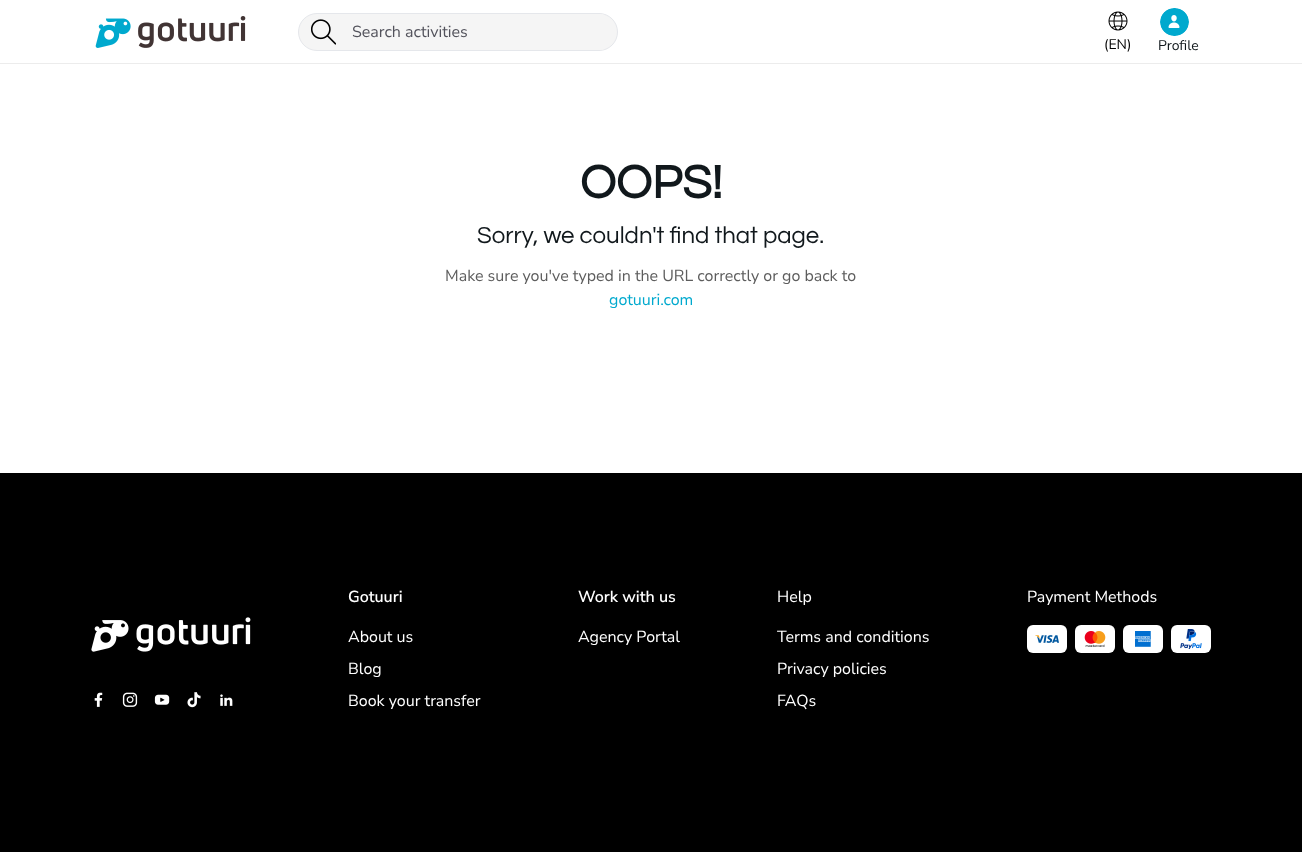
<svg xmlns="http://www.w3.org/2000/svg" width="1302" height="852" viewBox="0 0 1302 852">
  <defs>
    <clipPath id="clip1"><rect x="299" y="14" width="318" height="36" rx="18"/></clipPath>
  </defs>
  <rect width="100%" height="100%" fill="rgb(255,255,255)"/>
  <rect x="0" y="63" width="1302" height="1" fill="rgb(236,236,236)"/>
  <image x="95" y="16" width="151" height="32" href="pic1.png"/>
  <rect x="298.5" y="13.5" width="319" height="37" rx="18.5" fill="rgb(245,245,245)" stroke="rgb(229,231,235)"/>
  <image x="311" y="19" width="25" height="26" href="pic2.png"/>
  <g clip-path="url(#clip1)">
    <rect x="336" y="14" width="269" height="36" fill="rgb(245,245,245)"/>
  </g>
  <text x="352" y="37" font-family="Nunito Sans" font-size="16" fill="rgb(82,82,91)">Search activities</text>
  <image x="1108" y="11" width="20" height="20" href="pic3.png"/>
  <text x="1104" y="49" font-family="Nunito Sans" font-size="14" fill="rgb(0,0,0)">(EN)</text>
  <image x="1160" y="8" width="29" height="28" href="pic4.png"/>
  <text x="1158" y="50" font-family="Nunito Sans" font-size="14" fill="rgb(17,24,28)">Profile</text>
  <text x="580" y="198" font-family="Questrial" font-size="48" font-weight="bold" fill="rgb(17,24,28)">OOPS!</text>
  <text x="477" y="243" font-family="Questrial" font-size="24" fill="rgb(17,24,28)">Sorry, we couldn't find that page.</text>
  <text x="445" y="281" font-family="Nunito Sans" font-size="16" fill="rgb(93,93,93)">Make sure you've typed in the URL correctly or go back to</text>
  <text x="609" y="305" font-family="Nunito Sans" font-size="16" fill="rgb(0,169,206)">gotuuri.com</text>
  <rect x="0" y="473" width="1302" height="379" fill="rgb(0,0,0)"/>
  <text x="348" y="602" font-family="Nunito Sans" font-size="16" font-weight="600" fill="rgb(255,255,255)">Gotuuri</text>
  <g font-family="Nunito Sans" font-size="16" fill="rgb(255,255,255)">
    <text x="348" y="642">About us</text>
    <text x="348" y="674">Blog</text>
    <text x="348" y="706">Book your transfer</text>
  </g>
  <text x="578" y="602" font-family="Nunito Sans" font-size="16" font-weight="600" fill="rgb(255,255,255)">Work with us</text>
  <g font-family="Nunito Sans" font-size="16" fill="rgb(255,255,255)">
    <text x="578" y="642">Agency Portal</text>
    <text x="777" y="602">Help</text>
    <text x="777" y="642">Terms and conditions</text>
    <text x="777" y="674">Privacy policies</text>
    <text x="777" y="706">FAQs</text>
    <text x="1027" y="602">Payment Methods</text>
  </g>
  <rect x="1027" y="625" width="40" height="28" rx="6" fill="rgb(255,255,255)"/>
  <image x="1035" y="635" width="24" height="8" href="pic5.png"/>
  <rect x="1075" y="625" width="40" height="28" rx="6" fill="rgb(255,255,255)"/>
  <image x="1084" y="631" width="22" height="16" href="pic6.png"/>
  <rect x="1123" y="625" width="40" height="28" rx="6" fill="rgb(255,255,255)"/>
  <image x="1135" y="631" width="16" height="16" href="pic7.png"/>
  <rect x="1171" y="625" width="40" height="28" rx="6" fill="rgb(255,255,255)"/>
  <image x="1180" y="629" width="22" height="20" href="pic8.png"/>
  <image x="91" y="617" width="160" height="35" href="pic9.png"/>
  <image x="94" y="692" width="9" height="15" href="pic10.png"/>
  <image x="122" y="692" width="16" height="15" href="pic11.png"/>
  <image x="154" y="694" width="16" height="11" href="pic12.png"/>
  <image x="187" y="692" width="14" height="16" href="pic13.png"/>
  <image x="220" y="694" width="13" height="12" href="pic14.png"/>
</svg>
